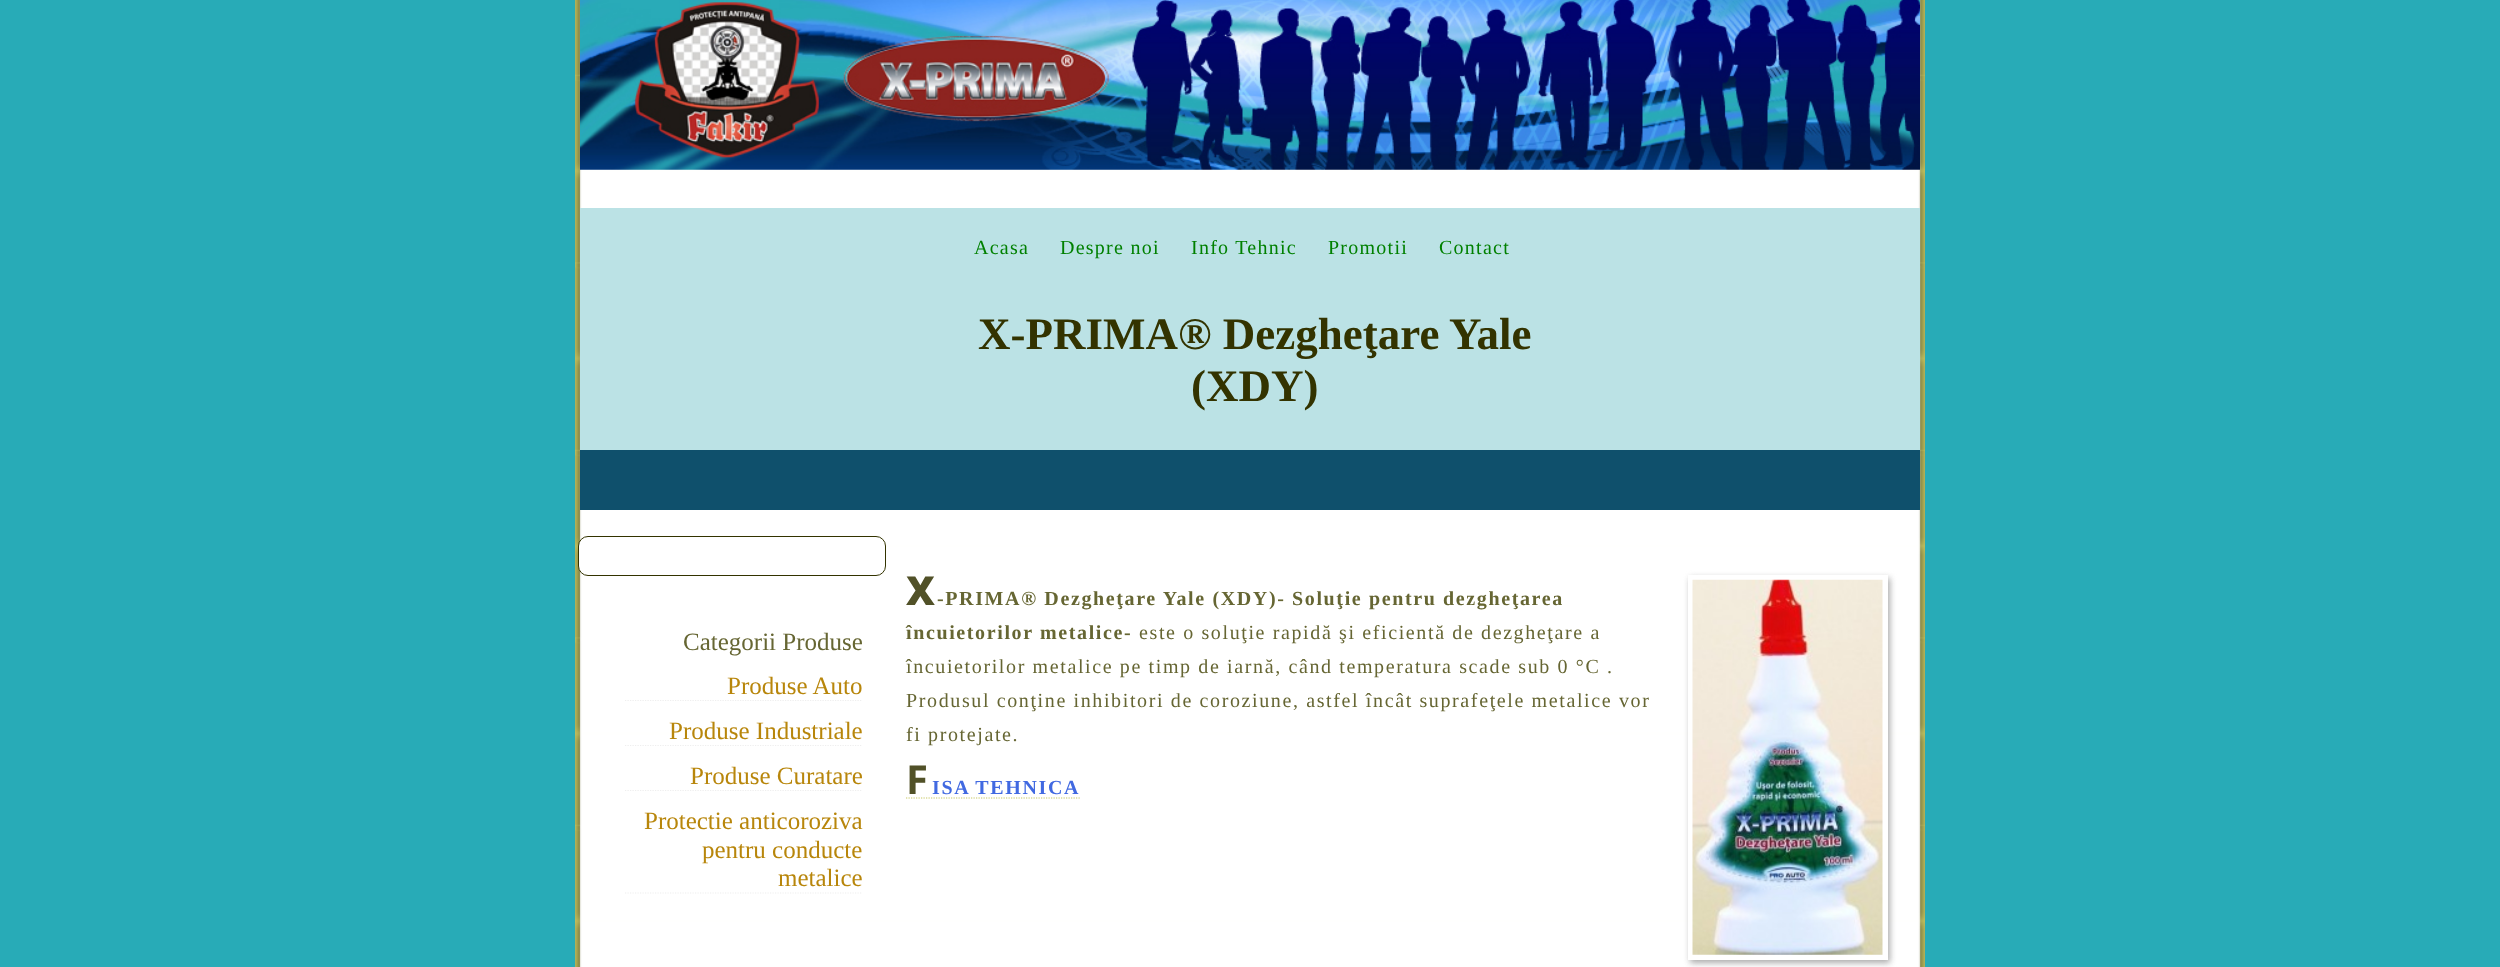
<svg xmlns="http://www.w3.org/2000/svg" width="2500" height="967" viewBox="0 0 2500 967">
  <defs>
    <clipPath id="clip1"><path d="M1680 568H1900V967H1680ZM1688 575H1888V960H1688Z" clip-rule="evenodd"/></clipPath>
  </defs>
  <rect width="100%" height="100%" fill="rgb(40,171,183)"/>
  <image x="575" y="0" width="1350" height="967" href="pic1.png"/>
  <image x="580" y="0" width="1340" height="170" href="pic2.png"/>
  <rect x="580" y="208" width="1340" height="242" fill="rgb(187,226,229)"/>
  <g font-family="Liberation Serif" font-size="20" letter-spacing="1.25" fill="rgb(0,128,0)">
    <text x="974" y="254">Acasa</text>
    <text x="1060" y="254">Despre noi</text>
    <text x="1191" y="254">Info Tehnic</text>
    <text x="1328" y="254">Promotii</text>
    <text x="1439" y="254">Contact</text>
  </g>
  <g font-family="Liberation Serif" font-size="45" font-weight="bold" fill="rgb(51,51,0)">
    <text x="978" y="349">X-PRIMA® Dezgheţare Yale</text>
    <text x="1191" y="401">(XDY)</text>
  </g>
  <rect x="580" y="450" width="1340" height="60" fill="rgb(15,80,108)"/>
  <rect x="578.5" y="536.5" width="307" height="39" rx="9.5" fill="rgb(255,255,255)" stroke="rgb(51,51,0)"/>
  <text x="683" y="650" font-family="Liberation Serif" font-size="25" fill="rgb(102,102,51)">Categorii Produse</text>
  <path d="M625 700.5H862.5" fill="none" stroke="rgb(238,238,238)" stroke-width="1.2" stroke-dasharray="1.25 1.25"/>
  <text x="727" y="694" font-family="Liberation Serif" font-size="25" fill="rgb(184,134,11)">Produse Auto</text>
  <path d="M625 745.5H862.5" fill="none" stroke="rgb(238,238,238)" stroke-width="1.2" stroke-dasharray="1.25 1.25"/>
  <text x="669" y="739" font-family="Liberation Serif" font-size="25" fill="rgb(184,134,11)">Produse Industriale</text>
  <path d="M625 790.5H862.5" fill="none" stroke="rgb(238,238,238)" stroke-width="1.2" stroke-dasharray="1.25 1.25"/>
  <text x="690" y="784" font-family="Liberation Serif" font-size="25" fill="rgb(184,134,11)">Produse Curatare</text>
  <path d="M625 893H862.5" fill="none" stroke="rgb(238,238,238)" stroke-width="1.2" stroke-dasharray="1.25 1.25"/>
  <g font-family="Liberation Serif" font-size="25" fill="rgb(184,134,11)">
    <text x="644" y="829">Protectie anticoroziva</text>
    <text x="702" y="858">pentru conducte</text>
    <text x="778" y="886">metalice</text>
  </g>
  <text x="906" y="605" font-family="Noto Sans" font-size="40" font-weight="900" letter-spacing="1.62" fill="rgb(81,81,40)">X</text>
  <g font-family="Liberation Serif" font-size="20" font-weight="bold" letter-spacing="1.62" fill="rgb(102,102,51)">
    <text x="937" y="605">-PRIMA® Dezgheţare Yale (XDY)- Soluţie pentru dezgheţarea</text>
    <text x="906" y="639">încuietorilor metalice-</text>
  </g>
  <g font-family="Liberation Serif" font-size="20" letter-spacing="1.62" fill="rgb(102,102,51)">
    <text x="1139" y="639">este o soluţie rapidă şi eficientă de dezgheţare a</text>
    <text>
      <tspan x="906" y="673">încuietorilor metalice pe timp de iarnă, când temperatura scade sub 0 °C .</tspan>
      <tspan x="906" y="707">Produsul conţine inhibitori de coroziune, astfel încât suprafeţele metalice vor</tspan>
      <tspan x="906" y="741">fi protejate.</tspan>
    </text>
  </g>
  <g clip-path="url(#clip1)">
    <rect x="1690" y="578" width="200" height="385" fill="rgb(170,170,170)" filter="blur(3px)"/>
  </g>
  <image x="1692" y="579" width="191" height="376" href="pic3.png"/>
  <text x="906" y="794" font-family="Noto Sans" font-size="40" font-weight="bold" letter-spacing="1.62" fill="rgb(81,81,40)">F</text>
  <text x="932" y="794" font-family="Liberation Serif" font-size="20" font-weight="bold" letter-spacing="1.62" fill="rgb(65,105,225)">ISA TEHNICA</text>
  <path d="M906 798H1080" fill="none" stroke="rgb(200,200,98)" stroke-width="1.2" stroke-dasharray="1.25 1.25"/>
</svg>
